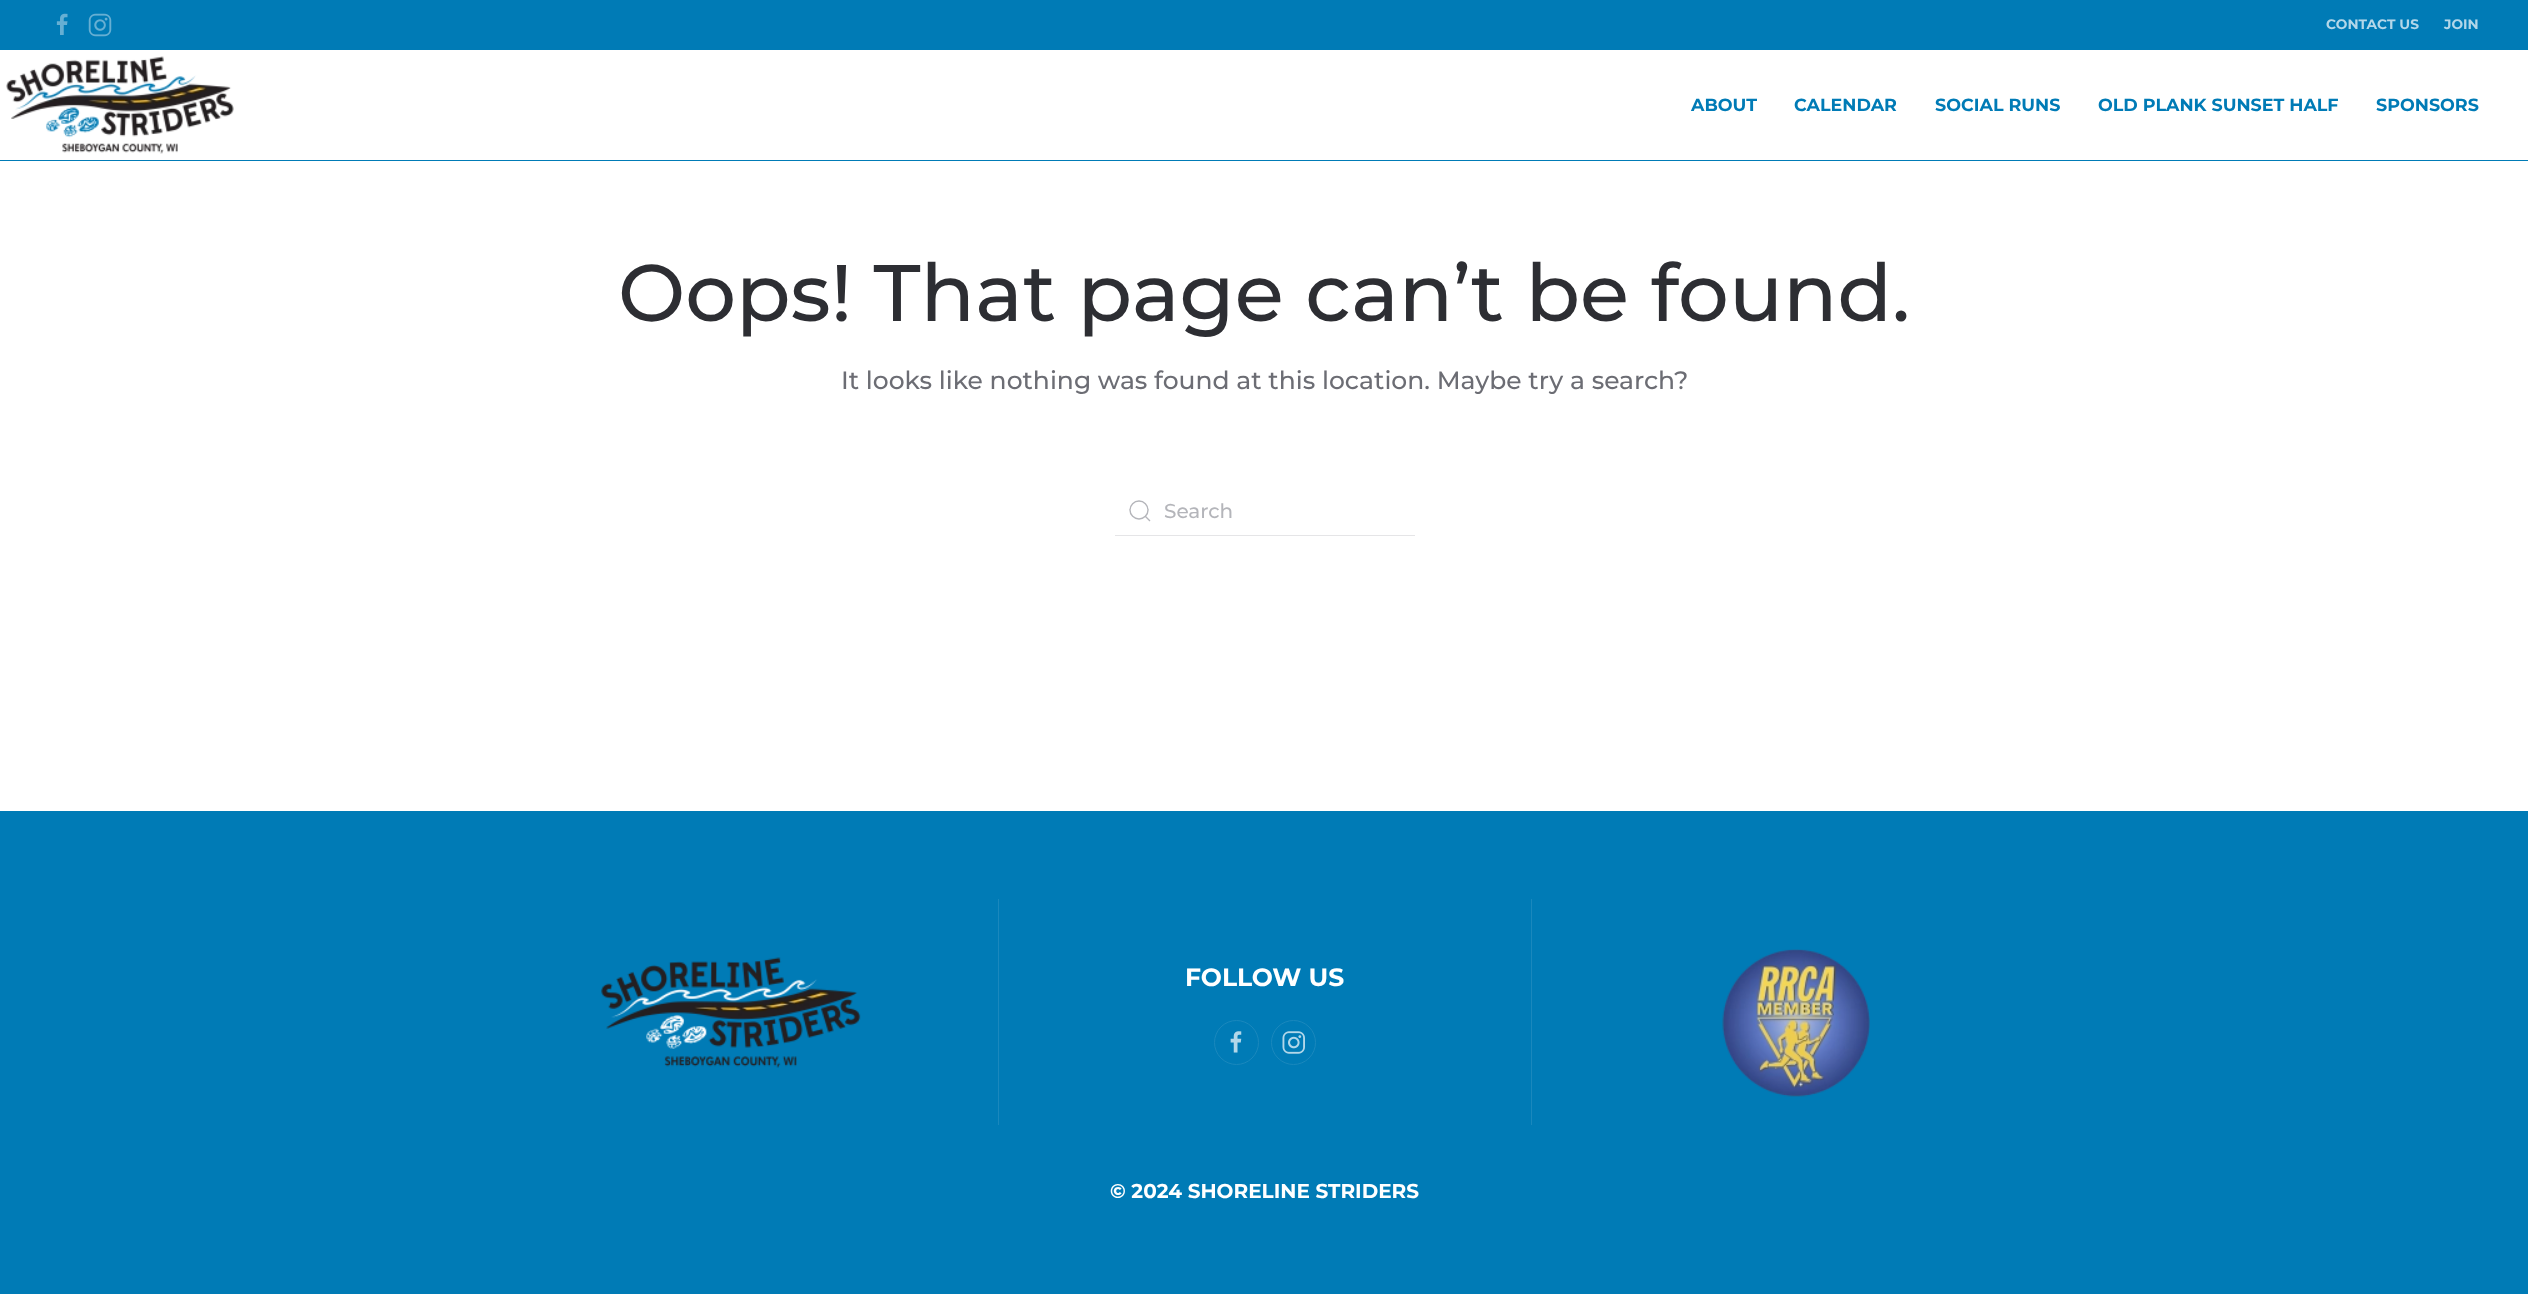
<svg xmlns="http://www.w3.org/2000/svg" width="2528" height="1294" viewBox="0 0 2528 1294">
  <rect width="100%" height="100%" fill="rgb(255,255,255)"/>
  <rect x="0" y="0" width="2528" height="50" fill="rgb(0,123,182)"/>
  <image x="56" y="13" width="12" height="22" href="pic1.png"/>
  <image x="88" y="13" width="24" height="24" href="pic2.png"/>
  <g font-family="'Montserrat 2'" font-size="13.75" font-weight="100" fill="rgb(179,215,233)">
    <text x="2326" y="29">CONTACT US</text>
    <text x="2444" y="29">JOIN</text>
  </g>
  <rect x="0" y="160" width="2528" height="1" fill="rgb(0,123,182)"/>
  <image x="6" y="56" width="228" height="98" href="pic3.png"/>
  <g font-family="'Montserrat 2'" font-size="17.5" font-weight="100" fill="rgb(0,123,182)">
    <text x="1691" y="111">ABOUT</text>
    <text x="1794" y="111">CALENDAR</text>
    <text x="1935" y="111">SOCIAL RUNS</text>
    <text x="2098" y="111">OLD PLANK SUNSET HALF</text>
    <text x="2376" y="111">SPONSORS</text>
  </g>
  <text x="618" y="321" font-family="Montserrat" font-size="80" font-weight="100" fill="rgb(45,46,51)">Oops! That page can’t be found.</text>
  <text x="841" y="389" font-family="Montserrat" font-size="25" font-weight="100" fill="rgb(108,109,116)">It looks like nothing was found at this location. Maybe try a search?</text>
  <circle cx="1139" cy="510" r="9" fill="none" stroke="rgb(180,181,186)" stroke-width="1.4"/>
  <path d="M1145 516L1150 521Z" fill="none" stroke="rgb(180,181,186)" stroke-width="1.4"/>
  <rect x="1115" y="535" width="300" height="1" fill="rgb(229,229,231)"/>
  <text x="1164" y="518" font-family="Montserrat" font-size="20" font-weight="100" fill="rgb(180,181,186)">Search</text>
  <rect x="0" y="811" width="2528" height="483" fill="rgb(0,123,182)"/>
  <image x="601" y="957" width="260" height="111" href="pic4.png"/>
  <rect x="998" y="899" width="1" height="226" fill="rgb(26,136,189)"/>
  <text x="1185" y="986" font-family="'Montserrat 2'" font-size="25" font-weight="100" fill="rgb(255,255,255)">FOLLOW US</text>
  <circle cx="1236.5" cy="1042.5" r="22" fill="none" stroke="rgb(26,136,189)"/>
  <image x="1230" y="1031" width="12" height="22" href="pic5.png"/>
  <circle cx="1293.5" cy="1042.5" r="22" fill="none" stroke="rgb(26,136,189)"/>
  <image x="1282" y="1031" width="23" height="23" href="pic6.png"/>
  <rect x="1531" y="899" width="1" height="226" fill="rgb(26,136,189)"/>
  <image x="1722" y="949" width="148" height="148" href="pic7.png"/>
  <text x="1110" y="1198" font-family="'Montserrat 2'" font-size="20" font-weight="100" fill="rgb(255,255,255)">© 2024 SHORELINE STRIDERS</text>
</svg>
